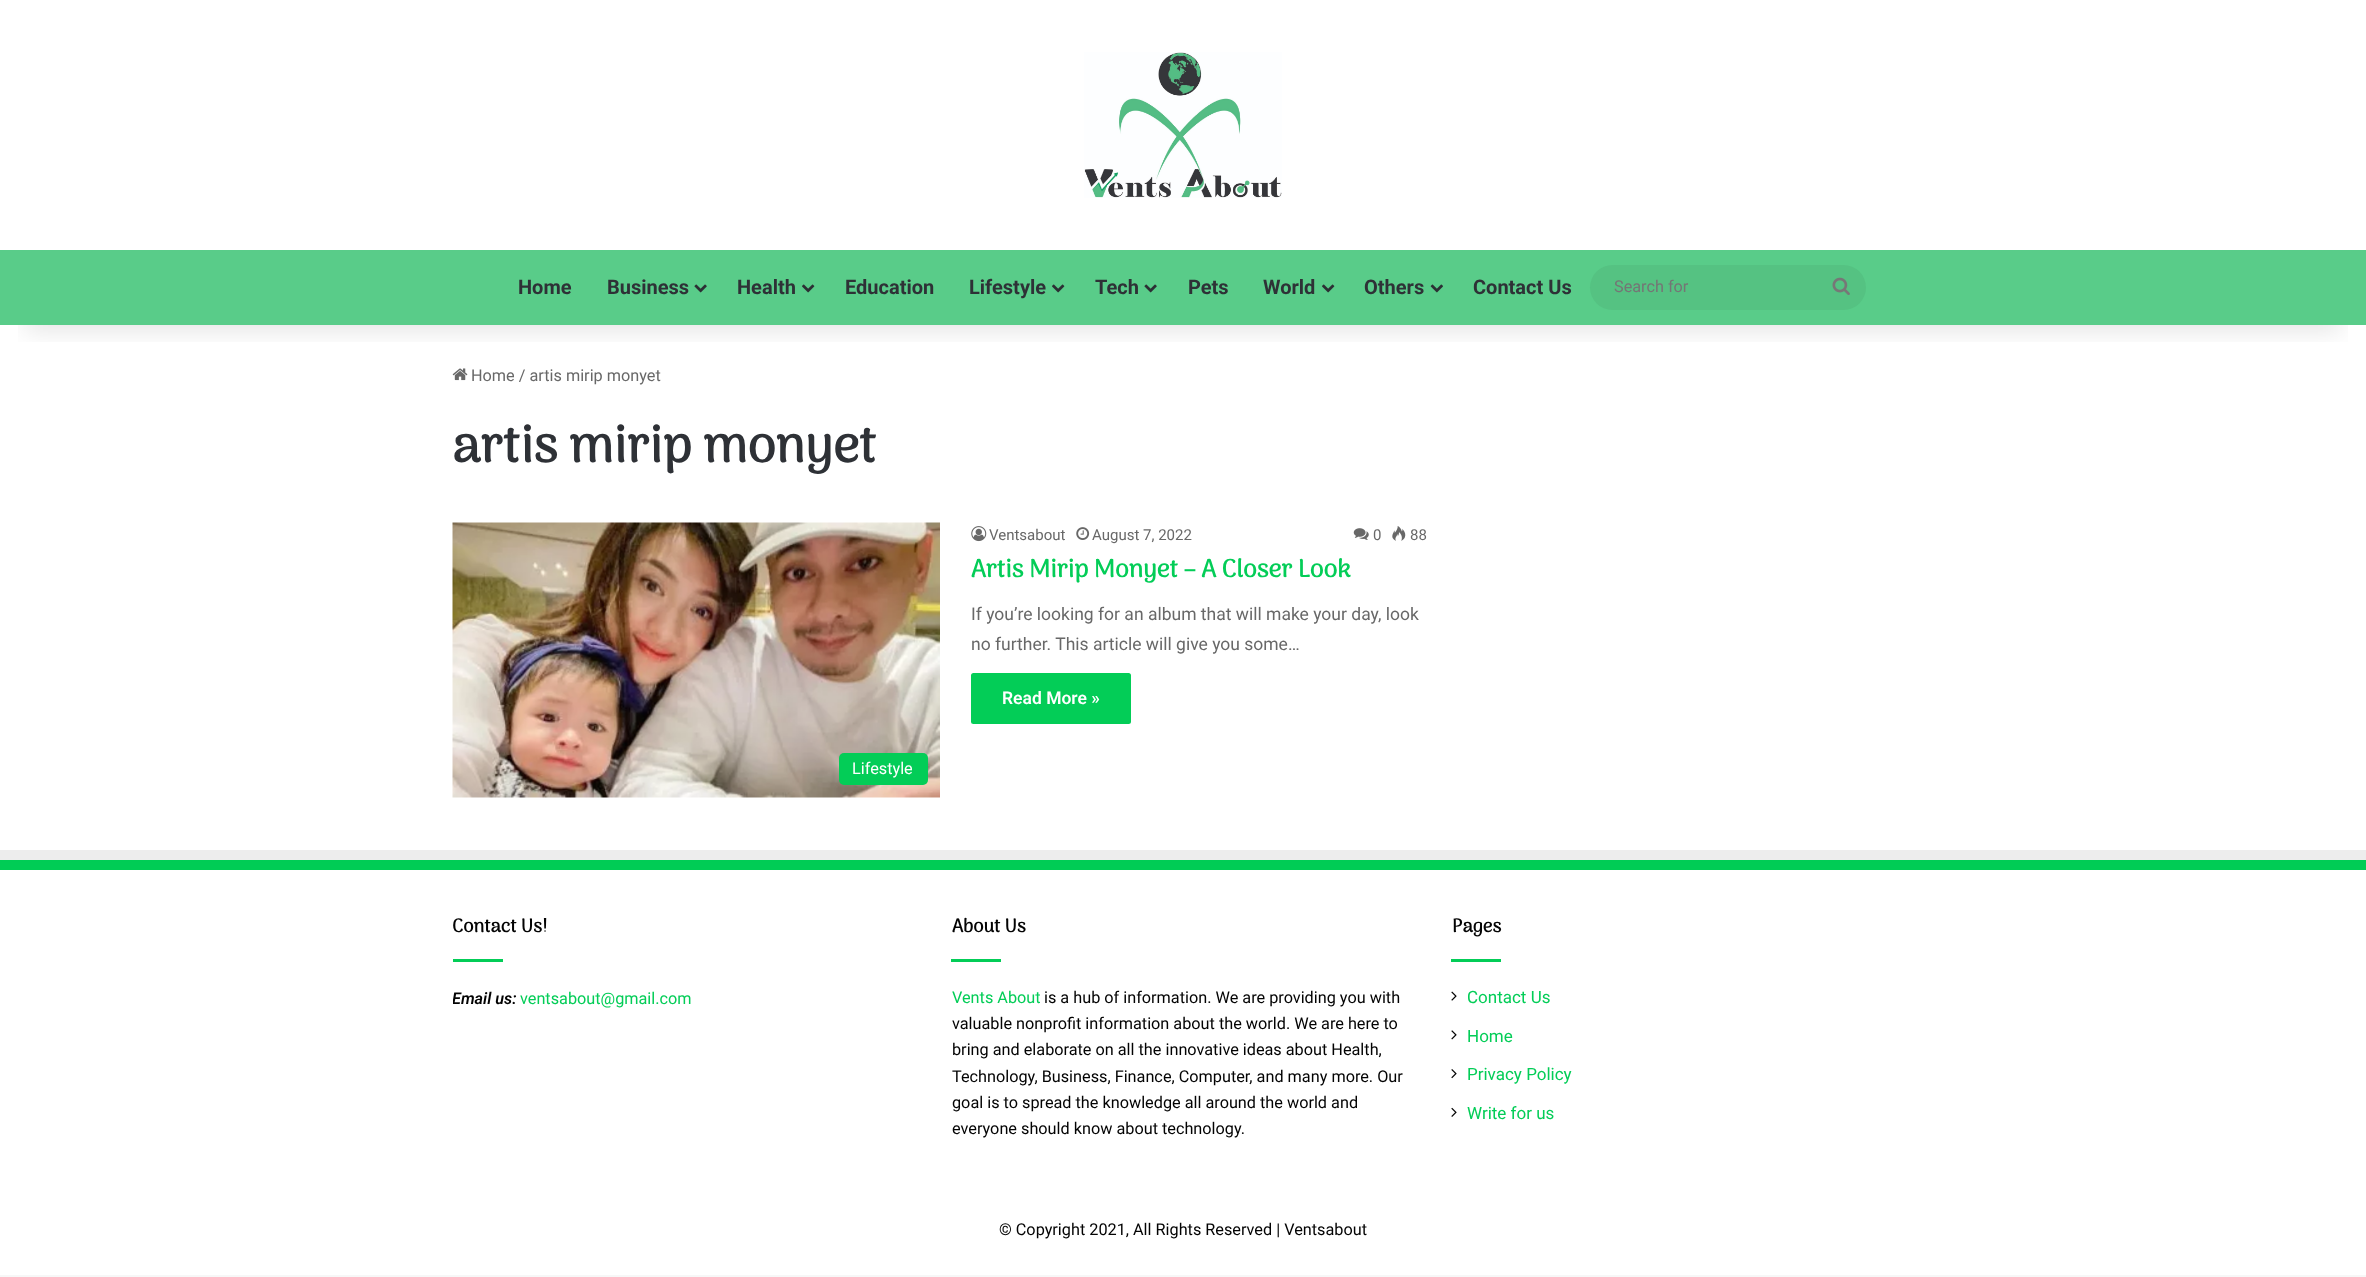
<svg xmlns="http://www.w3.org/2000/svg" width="2366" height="1277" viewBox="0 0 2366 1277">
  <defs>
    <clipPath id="clip1"><rect x="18" y="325" width="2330" height="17"/></clipPath>
    <clipPath id="clip2"><rect x="453" y="984" width="461" height="30"/></clipPath>
  </defs>
  <rect width="100%" height="100%" fill="rgb(247,247,247)"/>
  <rect x="0" y="0" width="2366" height="1275" fill="rgb(255,255,255)"/>
  <image x="452" y="368" width="16" height="13" href="pic6.png"/>
  <g clip-path="url(#clip1)">
    <rect x="25" y="56" width="2316" height="275" fill="rgba(0,0,0,0.1)" filter="blur(12.5px)"/>
  </g>
  <image x="1084" y="52" width="198" height="146" href="pic1.png"/>
  <rect x="0" y="250" width="2366" height="75" fill="rgb(89,204,137)"/>
  <g font-family="Roboto" font-size="20" font-weight="bold" fill="rgb(46,49,54)">
    <text x="518" y="294">Home</text>
    <text x="607" y="294">Business</text>
  </g>
  <image x="694" y="284" width="13" height="9" href="pic2.png"/>
  <text x="737" y="294" font-family="Roboto" font-size="20" font-weight="bold" fill="rgb(46,49,54)">Health</text>
  <image x="802" y="284" width="13" height="9" href="pic3.png"/>
  <g font-family="Roboto" font-size="20" font-weight="bold" fill="rgb(46,49,54)">
    <text x="845" y="294">Education</text>
    <text x="969" y="294">Lifestyle</text>
  </g>
  <image x="1052" y="284" width="13" height="9" href="pic3.png"/>
  <text x="1095" y="294" font-family="Roboto" font-size="20" font-weight="bold" fill="rgb(46,49,54)">Tech</text>
  <image x="1144" y="284" width="13" height="9" href="pic2.png"/>
  <g font-family="Roboto" font-size="20" font-weight="bold" fill="rgb(46,49,54)">
    <text x="1188" y="294">Pets</text>
    <text x="1263" y="294">World</text>
  </g>
  <image x="1322" y="284" width="13" height="9" href="pic3.png"/>
  <text x="1364" y="294" font-family="Roboto" font-size="20" font-weight="bold" fill="rgb(46,49,54)">Others</text>
  <image x="1430" y="284" width="13" height="9" href="pic4.png"/>
  <text x="1473" y="294" font-family="Roboto" font-size="20" font-weight="bold" fill="rgb(46,49,54)">Contact Us</text>
  <rect x="1590" y="265" width="276" height="45" rx="22.5" fill="rgb(85,194,130)"/>
  <text x="1614" y="292" font-family="Roboto" font-size="16.25" fill="rgb(117,117,117)">Search for</text>
  <image x="1832" y="277" width="18" height="18" href="pic5.png"/>
  <text x="471" y="381" font-family="Roboto" font-size="16.25" fill="rgb(104,104,104)">Home / artis mirip monyet</text>
  <text x="452" y="462" font-family="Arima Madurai" font-size="51.25" font-weight="bold" fill="rgb(46,49,54)">artis mirip monyet</text>
  <image x="971" y="526" width="16" height="16" href="pic7.png"/>
  <text x="989" y="540" font-family="Roboto" font-size="15" fill="rgb(104,104,104)">Ventsabout</text>
  <image x="1076" y="527" width="14" height="13" href="pic8.png"/>
  <text x="1092" y="540" font-family="Roboto" font-size="15" fill="rgb(104,104,104)">August 7, 2022</text>
  <image x="1353" y="528" width="16" height="12" href="pic9.png"/>
  <text x="1373" y="540" font-family="Roboto" font-size="15" fill="rgb(104,104,104)">0</text>
  <image x="1392" y="526" width="14" height="15" href="pic10.png"/>
  <text x="1410" y="540" font-family="Roboto" font-size="15" fill="rgb(104,104,104)">88</text>
  <text x="971" y="577" font-family="Arima Madurai" font-size="25" font-weight="bold" fill="rgb(3,205,87)">Artis Mirip Monyet – A Closer Look</text>
  <g font-family="Roboto" font-size="17.5" fill="rgb(104,104,104)">
    <text>
      <tspan x="971" y="620">If you’re looking for an album that will make your day, look</tspan>
      <tspan x="971" y="650">no further. This article will give you some…</tspan>
    </text>
  </g>
  <rect x="971" y="673" width="160" height="51" rx="2.5" fill="rgb(3,205,87)"/>
  <text x="1002" y="704" font-family="Roboto" font-size="17.5" font-weight="600" fill="rgb(255,255,255)">Read More »</text>
  <image x="452" y="522" width="488" height="276" href="pic11.png"/>
  <rect x="839" y="753" width="89" height="32" rx="5" fill="rgb(3,205,87)"/>
  <text x="852" y="774" font-family="Roboto" font-size="16.25" fill="rgb(255,255,255)">Lifestyle</text>
  <rect x="0" y="850" width="2366" height="10" fill="rgb(237,237,237)"/>
  <rect x="0" y="860" width="2366" height="10" fill="rgb(0,204,85)"/>
  <text x="452" y="932" font-family="Arima Madurai" font-size="18.75" font-weight="bold" fill="rgb(3,3,3)">Contact Us!</text>
  <rect x="453" y="959" width="50" height="3" fill="rgb(3,205,87)"/>
  <g clip-path="url(#clip2)">
    <text x="452" y="1004" font-family="Roboto" font-size="16.25" font-weight="600" font-style="italic" fill="rgb(3,3,3)">Email us:</text>
  </g>
  <text x="520" y="1004" font-family="Roboto" font-size="16.25" fill="rgb(3,205,87)">ventsabout@gmail.com</text>
  <text x="952" y="932" font-family="Arima Madurai" font-size="18.75" font-weight="bold" fill="rgb(3,3,3)">About Us</text>
  <rect x="951" y="959" width="50" height="3" fill="rgb(3,205,87)"/>
  <text x="952" y="1003" font-family="Roboto" font-size="16.25" fill="rgb(3,205,87)">Vents About</text>
  <g font-family="Roboto" font-size="16.25" fill="rgb(3,3,3)">
    <text x="1044" y="1003">is a hub of information. We are providing you with</text>
    <text>
      <tspan x="952" y="1029">valuable nonprofit information about the world. We are here to</tspan>
      <tspan x="952" y="1055">bring and elaborate on all the innovative ideas about Health,</tspan>
      <tspan x="952" y="1082">Technology, Business, Finance, Computer, and many more. Our</tspan>
      <tspan x="952" y="1108">goal is to spread the knowledge all around the world and</tspan>
      <tspan x="952" y="1134">everyone should know about technology.</tspan>
    </text>
  </g>
  <text x="1452" y="932" font-family="Arima Madurai" font-size="18.75" font-weight="bold" fill="rgb(3,3,3)">Pages</text>
  <rect x="1451" y="959" width="50" height="3" fill="rgb(3,205,87)"/>
  <image x="1451" y="991" width="6" height="10" href="pic12.png"/>
  <text x="1467" y="1003" font-family="Roboto" font-size="17" fill="rgb(3,205,87)">Contact Us</text>
  <image x="1451" y="1030" width="6" height="10" href="pic13.png"/>
  <text x="1467" y="1042" font-family="Roboto" font-size="17" fill="rgb(3,205,87)">Home</text>
  <image x="1451" y="1069" width="6" height="10" href="pic14.png"/>
  <text x="1467" y="1080" font-family="Roboto" font-size="17" fill="rgb(3,205,87)">Privacy Policy</text>
  <image x="1451" y="1107" width="6" height="10" href="pic15.png"/>
  <text x="1467" y="1119" font-family="Roboto" font-size="17" fill="rgb(3,205,87)">Write for us</text>
  <text x="999" y="1235" font-family="Roboto" font-size="16.25" fill="rgb(3,3,3)">© Copyright 2021, All Rights Reserved | Ventsabout</text>
</svg>
